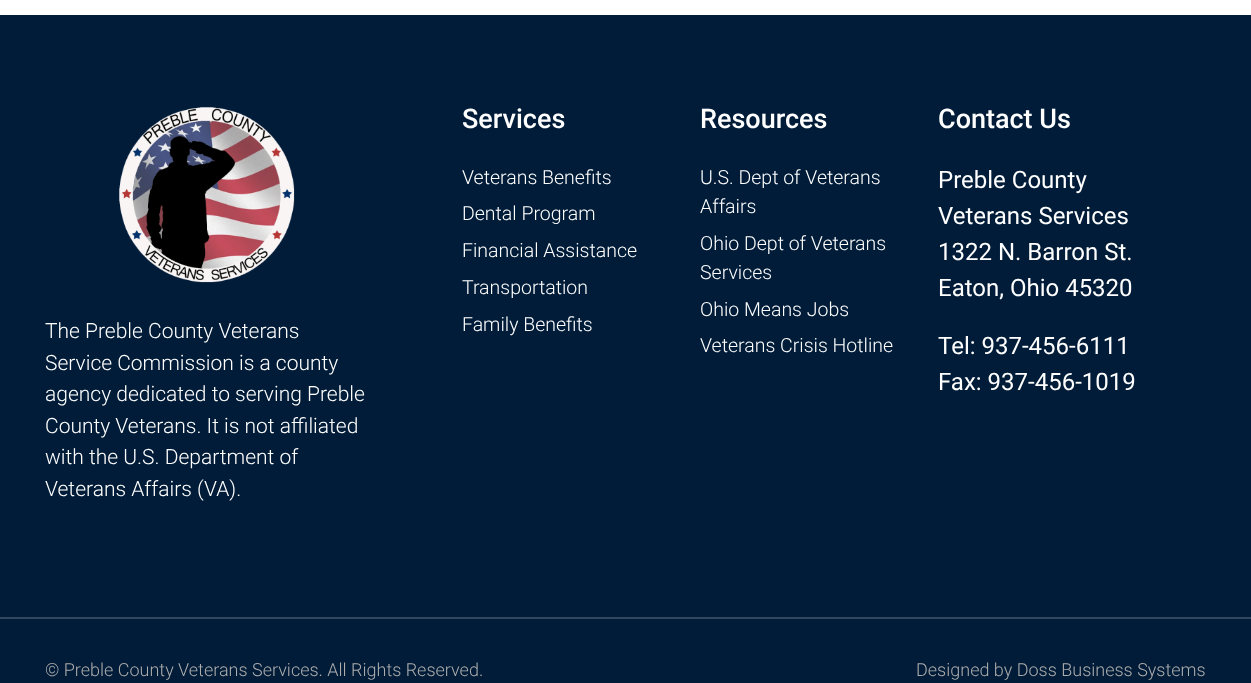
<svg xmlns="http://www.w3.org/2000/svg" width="1251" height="683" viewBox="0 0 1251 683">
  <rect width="100%" height="100%" fill="rgb(255,255,255)"/>
  <rect x="0" y="15" width="1251" height="602" fill="rgb(0,28,56)"/>
  <text x="462" y="128" font-family="Roboto" font-size="27" font-weight="500" fill="rgb(255,255,255)">Services</text>
  <g font-family="Roboto" font-size="19.5" font-weight="300" fill="rgb(255,255,255)">
    <text>
      <tspan x="462" y="184">Veterans Benefits</tspan>
      <tspan x="462" y="220">Dental Program</tspan>
      <tspan x="462" y="257">Financial Assistance</tspan>
      <tspan x="462" y="294">Transportation</tspan>
      <tspan x="462" y="331">Family Benefits</tspan>
    </text>
  </g>
  <text x="700" y="128" font-family="Roboto" font-size="27" font-weight="500" fill="rgb(255,255,255)">Resources</text>
  <g font-family="Roboto" font-size="19.5" font-weight="300" fill="rgb(255,255,255)">
    <text>
      <tspan x="700" y="184">U.S. Dept of Veterans</tspan>
      <tspan x="700" y="213">Affairs</tspan>
      <tspan x="700" y="250">Ohio Dept of Veterans</tspan>
      <tspan x="700" y="279">Services</tspan>
      <tspan x="700" y="316">Ohio Means Jobs</tspan>
      <tspan x="700" y="352">Veterans Crisis Hotline</tspan>
    </text>
  </g>
  <text x="938" y="128" font-family="Roboto" font-size="27" font-weight="500" fill="rgb(255,255,255)">Contact Us</text>
  <g font-family="Roboto" font-size="24" fill="rgb(255,255,255)">
    <text>
      <tspan x="938" y="188">Preble County</tspan>
      <tspan x="938" y="224">Veterans Services</tspan>
      <tspan x="938" y="260">1322 N. Barron St.</tspan>
      <tspan x="938" y="296">Eaton, Ohio 45320</tspan>
    </text>
    <text>
      <tspan x="938" y="354">Tel: 937-456-6111</tspan>
      <tspan x="938" y="390">Fax: 937-456-1019</tspan>
    </text>
  </g>
  <image x="119" y="107" width="176" height="176" href="pic1.png"/>
  <g font-family="Roboto" font-size="21" font-weight="300" fill="rgb(255,255,255)">
    <text>
      <tspan x="45" y="338">The Preble County Veterans</tspan>
      <tspan x="45" y="370">Service Commission is a county</tspan>
      <tspan x="45" y="401">agency dedicated to serving Preble</tspan>
      <tspan x="45" y="433">County Veterans. It is not affiliated</tspan>
      <tspan x="45" y="464">with the U.S. Department of</tspan>
      <tspan x="45" y="496">Veterans Affairs (VA).</tspan>
    </text>
  </g>
  <rect x="0" y="619" width="1251" height="64" fill="rgb(0,28,56)"/>
  <rect x="0" y="617" width="1251" height="2" fill="rgb(48,71,94)"/>
  <g font-family="Roboto" font-size="18" font-weight="300" fill="rgb(173,173,173)">
    <text x="45" y="676">© Preble County Veterans Services. All Rights Reserved.</text>
    <text x="916" y="676">Designed by Doss Business Systems</text>
  </g>
</svg>
